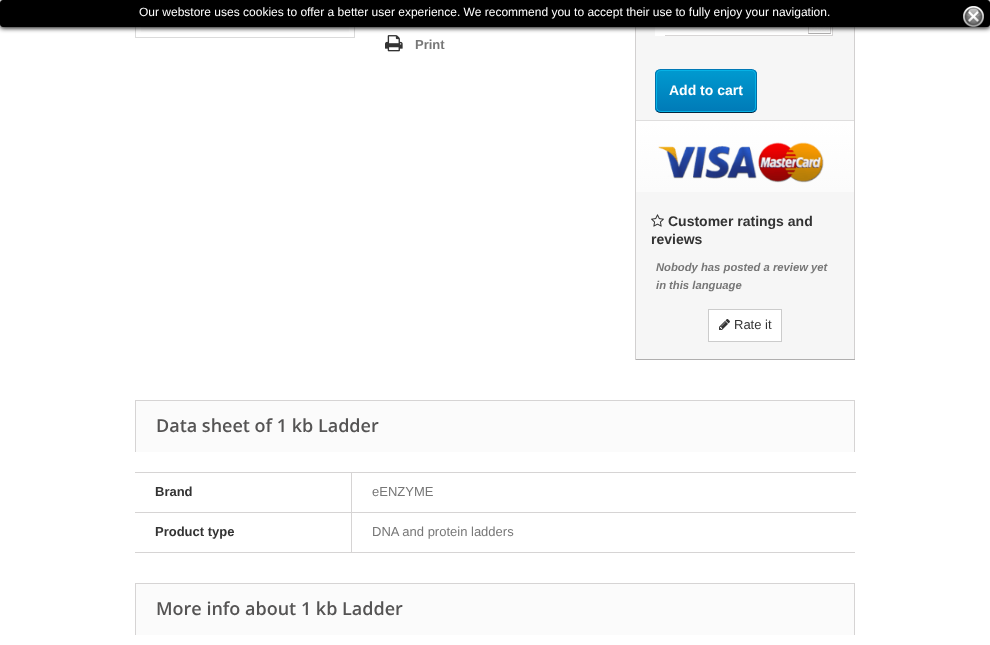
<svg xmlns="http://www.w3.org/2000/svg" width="990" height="645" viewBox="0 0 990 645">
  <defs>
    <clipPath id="clip1"><rect x="655" y="69" width="102" height="44" rx="5"/></clipPath>
    <linearGradient id="g1" gradientUnits="userSpaceOnUse" x1="706" y1="70" x2="706" y2="112"><stop offset="0" stop-color="rgb(0,154,208)"/><stop offset="1" stop-color="rgb(0,122,183)"/></linearGradient>
    <linearGradient id="g2" gradientUnits="userSpaceOnUse" x1="745" y1="121" x2="745" y2="192"><stop offset="0" stop-color="rgb(255,255,255)"/><stop offset="1" stop-color="rgb(251,251,251)"/></linearGradient>
  </defs>
  <rect width="100%" height="100%" fill="rgb(255,255,255)"/>
  <rect x="135.5" y="-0.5" width="219" height="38" fill="none" stroke="rgb(219,219,219)"/>
  <rect x="141" y="27" width="208" height="5" fill="rgb(251,251,251)"/>
  <image x="385" y="35" width="18" height="17" href="pic2.png"/>
  <rect x="636" y="27" width="218" height="332" fill="rgb(246,246,246)"/>
  <rect x="854" y="27" width="1" height="333" fill="rgb(210,208,208)"/>
  <rect x="635" y="359" width="220" height="1" fill="rgb(176,175,175)"/>
  <rect x="635" y="27" width="1" height="333" fill="rgb(210,208,208)"/>
  <rect x="655" y="27" width="10" height="9" fill="rgb(255,255,255)"/>
  <image x="665" y="27" width="168" height="9" href="pic3.png"/>
  <rect x="0" y="1" width="990" height="27" rx="3" fill="rgb(0,0,0)" filter="blur(2.5px)"/>
  <rect x="0.5" y="0.5" width="989" height="26" rx="2.5" fill="rgb(0,0,0)" stroke="rgb(0,0,0)"/>
  <text x="139" y="16" font-family="Liberation Sans" font-size="12" fill="rgb(255,255,255)">Our webstore uses cookies to offer a better user experience. We recommend you to accept their use to fully enjoy your navigation.</text>
  <image x="963" y="6" width="21" height="21" href="pic1.png"/>
  <text x="415" y="49" font-family="Liberation Sans" font-size="13" font-weight="bold" fill="rgb(119,119,119)">Print</text>
  <g clip-path="url(#clip1)">
    <rect x="655" y="70" width="102" height="42" fill="url(#g1)"/>
  </g>
  <path d="M657 71C657.5 70 659 69.5 660 69.5H752C753 69.5 754.5 70 755 71" fill="none" stroke="rgb(0,121,182)"/>
  <path d="M755 71C756 71.5 756.5 73 756.5 74V108C756.5 109 756 110.5 755 111" fill="none" stroke="rgb(0,111,168)"/>
  <path d="M755 111C754.5 112 753 112.5 752 112.5H660C659 112.5 657.5 112 657 111" fill="none" stroke="rgb(1,39,64)"/>
  <path d="M657 111C656 110.5 655.5 109 655.5 108V74C655.5 73 656 71.5 657 71" fill="none" stroke="rgb(0,111,168)"/>
  <rect x="656.5" y="70.5" width="99" height="41" rx="4.5" fill="none" stroke="rgb(6,178,230)"/>
  <text x="669" y="95" font-family="Liberation Sans" font-size="14" font-weight="bold" fill="rgb(255,255,255)">Add to cart</text>
  <rect x="636" y="121" width="218" height="71" fill="url(#g2)"/>
  <rect x="636" y="120" width="218" height="1" fill="rgb(223,222,222)"/>
  <image x="658" y="142" width="166" height="41" href="pic4.png"/>
  <image x="651" y="214" width="13" height="13" href="pic5.png"/>
  <g font-family="Liberation Sans" font-size="14" font-weight="bold" fill="rgb(51,51,51)">
    <text x="668" y="226">Customer ratings and</text>
    <text x="651" y="244">reviews</text>
  </g>
  <g font-family="Liberation Sans" font-size="11.25" font-weight="bold" font-style="italic" fill="rgb(119,119,119)">
    <text>
      <tspan x="656" y="271">Nobody has posted a review yet</tspan>
      <tspan x="656" y="289">in this language</tspan>
    </text>
  </g>
  <rect x="708.5" y="309.5" width="73" height="32" fill="rgb(255,255,255)" stroke="rgb(204,204,204)"/>
  <image x="719" y="319" width="11" height="11" href="pic6.png"/>
  <text x="734" y="329" font-family="Liberation Sans" font-size="13" fill="rgb(51,51,51)">Rate it</text>
  <rect x="136" y="401" width="718" height="51" fill="rgb(251,251,251)"/>
  <rect x="135" y="400" width="720" height="1" fill="rgb(214,212,212)"/>
  <rect x="854" y="400" width="1" height="52" fill="rgb(214,212,212)"/>
  <rect x="135" y="400" width="1" height="52" fill="rgb(214,212,212)"/>
  <text x="156" y="432" font-family="Open Sans" font-size="18" font-weight="600" fill="rgb(85,84,84)">Data sheet of 1 kb Ladder</text>
  <rect x="135" y="552" width="720" height="1" fill="rgb(214,212,212)"/>
  <rect x="135" y="472" width="721" height="1" fill="rgb(214,212,212)"/>
  <text x="155" y="496" font-family="Liberation Sans" font-size="13" font-weight="bold" fill="rgb(51,51,51)">Brand</text>
  <text x="372" y="496" font-family="Liberation Sans" font-size="13" fill="rgb(119,119,119)">eENZYME</text>
  <rect x="135" y="512" width="721" height="1" fill="rgb(214,212,212)"/>
  <rect x="351" y="472" width="1" height="81" fill="rgb(214,212,212)"/>
  <text x="155" y="536" font-family="Liberation Sans" font-size="13" font-weight="bold" fill="rgb(51,51,51)">Product type</text>
  <text x="372" y="536" font-family="Liberation Sans" font-size="13" fill="rgb(119,119,119)">DNA and protein ladders</text>
  <rect x="136" y="584" width="718" height="51" fill="rgb(251,251,251)"/>
  <rect x="135" y="583" width="720" height="1" fill="rgb(214,212,212)"/>
  <rect x="854" y="583" width="1" height="52" fill="rgb(214,212,212)"/>
  <rect x="135" y="583" width="1" height="52" fill="rgb(214,212,212)"/>
  <text x="156" y="615" font-family="Open Sans" font-size="18" font-weight="600" fill="rgb(85,84,84)">More info about 1 kb Ladder</text>
</svg>
